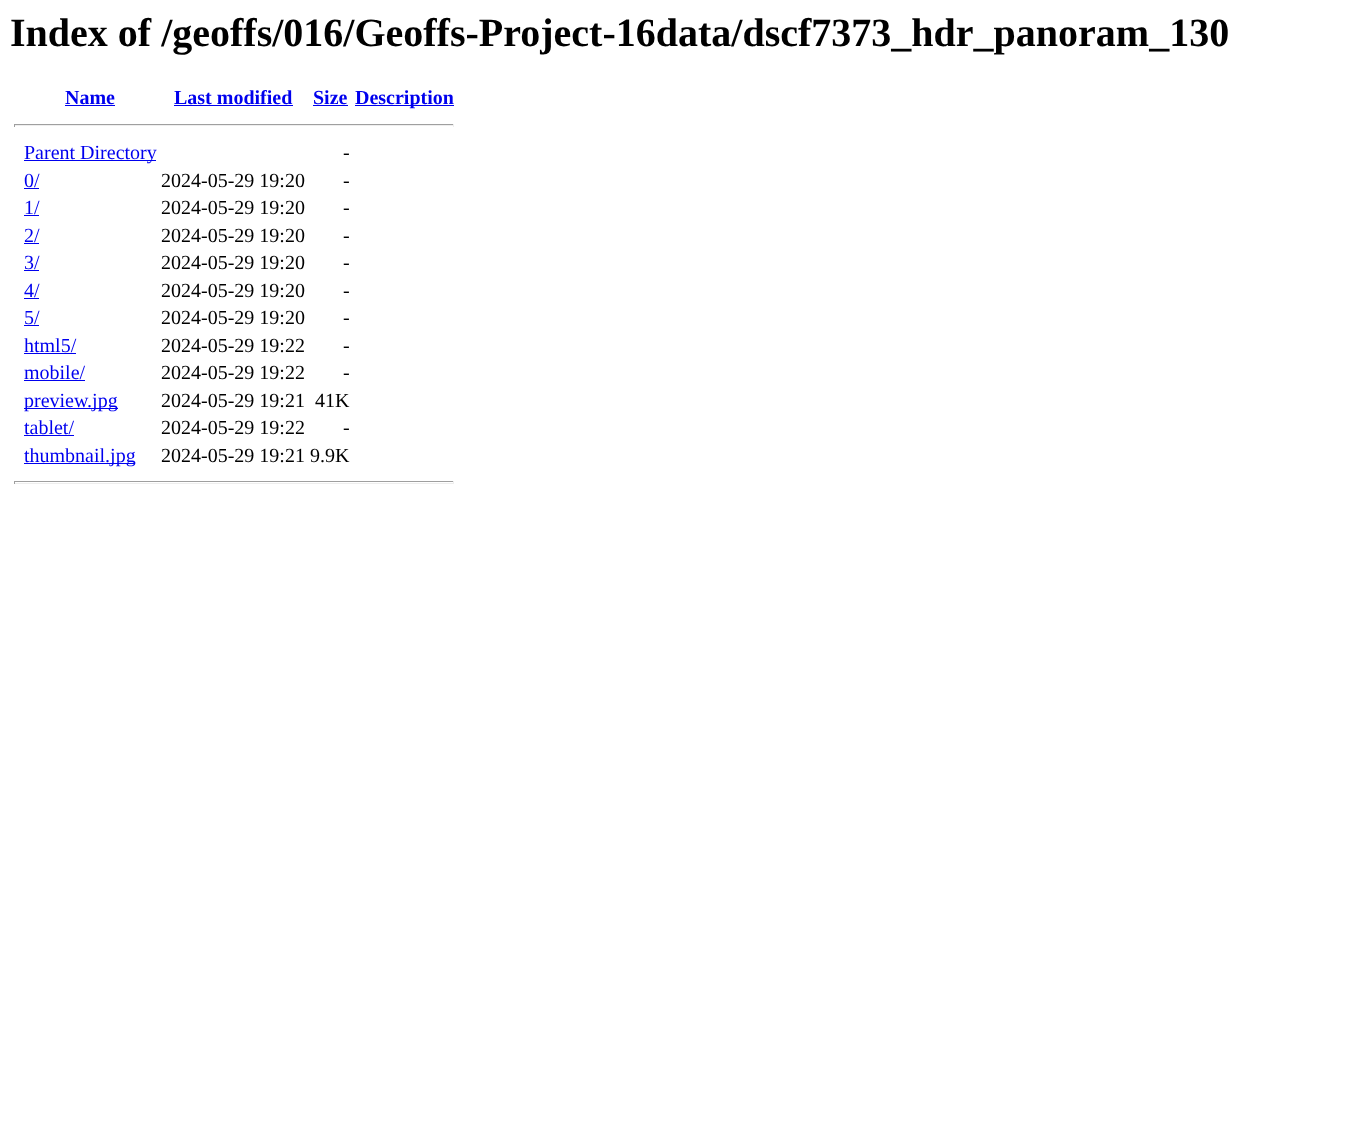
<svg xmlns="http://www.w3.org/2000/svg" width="1362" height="1127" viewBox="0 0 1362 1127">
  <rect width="100%" height="100%" fill="rgb(255,255,255)"/>
  <text x="10" y="46" font-family="Liberation Serif" font-size="40" font-weight="bold" fill="rgb(0,0,0)">Index of /geoffs/016/Geoffs-Project-16data/dscf7373_hdr_panoram_130</text>
  <text x="65" y="104" font-family="Liberation Serif" font-size="20" font-weight="bold" fill="rgb(0,0,238)">Name</text>
  <rect x="65" y="105" width="50" height="1" fill="rgb(0,0,238)"/>
  <text x="174" y="104" font-family="Liberation Serif" font-size="20" font-weight="bold" fill="rgb(0,0,238)">Last modified</text>
  <rect x="174" y="105" width="119" height="1" fill="rgb(0,0,238)"/>
  <text x="313" y="104" font-family="Liberation Serif" font-size="20" font-weight="bold" fill="rgb(0,0,238)">Size</text>
  <rect x="313" y="105" width="35" height="1" fill="rgb(0,0,238)"/>
  <rect x="355" y="105" width="99" height="1" fill="rgb(0,0,238)"/>
  <text x="355" y="104" font-family="Liberation Serif" font-size="20" font-weight="bold" fill="rgb(0,0,238)">Description</text>
  <rect x="14" y="124" width="440" height="1" fill="rgb(159,159,159)"/>
  <rect x="453" y="124" width="1" height="3" fill="rgb(238,238,238)"/>
  <rect x="14" y="125" width="440" height="1" fill="rgb(238,238,238)"/>
  <rect x="14" y="124" width="1" height="3" fill="rgb(159,159,159)"/>
  <rect x="24" y="160" width="132" height="1" fill="rgb(0,0,238)"/>
  <text x="24" y="159" font-family="Liberation Serif" font-size="20" fill="rgb(0,0,238)">Parent Directory</text>
  <text x="343" y="159" font-family="Liberation Serif" font-size="20" fill="rgb(0,0,0)">-</text>
  <text x="24" y="187" font-family="Liberation Serif" font-size="20" fill="rgb(0,0,238)">0/</text>
  <rect x="24" y="188" width="15" height="1" fill="rgb(0,0,238)"/>
  <g font-family="Liberation Serif" font-size="20" fill="rgb(0,0,0)">
    <text x="161" y="187">2024-05-29 19:20</text>
    <text x="343" y="187">-</text>
  </g>
  <text x="24" y="214" font-family="Liberation Serif" font-size="20" fill="rgb(0,0,238)">1/</text>
  <rect x="24" y="215" width="15" height="1" fill="rgb(0,0,238)"/>
  <g font-family="Liberation Serif" font-size="20" fill="rgb(0,0,0)">
    <text x="161" y="214">2024-05-29 19:20</text>
    <text x="343" y="214">-</text>
  </g>
  <text x="24" y="242" font-family="Liberation Serif" font-size="20" fill="rgb(0,0,238)">2/</text>
  <rect x="24" y="243" width="15" height="1" fill="rgb(0,0,238)"/>
  <g font-family="Liberation Serif" font-size="20" fill="rgb(0,0,0)">
    <text x="161" y="242">2024-05-29 19:20</text>
    <text x="343" y="242">-</text>
  </g>
  <text x="24" y="269" font-family="Liberation Serif" font-size="20" fill="rgb(0,0,238)">3/</text>
  <rect x="24" y="270" width="15" height="1" fill="rgb(0,0,238)"/>
  <g font-family="Liberation Serif" font-size="20" fill="rgb(0,0,0)">
    <text x="161" y="269">2024-05-29 19:20</text>
    <text x="343" y="269">-</text>
  </g>
  <text x="24" y="297" font-family="Liberation Serif" font-size="20" fill="rgb(0,0,238)">4/</text>
  <rect x="24" y="298" width="15" height="1" fill="rgb(0,0,238)"/>
  <g font-family="Liberation Serif" font-size="20" fill="rgb(0,0,0)">
    <text x="161" y="297">2024-05-29 19:20</text>
    <text x="343" y="297">-</text>
  </g>
  <text x="24" y="324" font-family="Liberation Serif" font-size="20" fill="rgb(0,0,238)">5/</text>
  <rect x="24" y="325" width="15" height="1" fill="rgb(0,0,238)"/>
  <g font-family="Liberation Serif" font-size="20" fill="rgb(0,0,0)">
    <text x="161" y="324">2024-05-29 19:20</text>
    <text x="343" y="324">-</text>
  </g>
  <text x="24" y="352" font-family="Liberation Serif" font-size="20" fill="rgb(0,0,238)">html5/</text>
  <rect x="24" y="353" width="52" height="1" fill="rgb(0,0,238)"/>
  <g font-family="Liberation Serif" font-size="20" fill="rgb(0,0,0)">
    <text x="161" y="352">2024-05-29 19:22</text>
    <text x="343" y="352">-</text>
  </g>
  <text x="24" y="379" font-family="Liberation Serif" font-size="20" fill="rgb(0,0,238)">mobile/</text>
  <rect x="24" y="380" width="61" height="1" fill="rgb(0,0,238)"/>
  <g font-family="Liberation Serif" font-size="20" fill="rgb(0,0,0)">
    <text x="161" y="379">2024-05-29 19:22</text>
    <text x="343" y="379">-</text>
  </g>
  <rect x="24" y="408" width="94" height="1" fill="rgb(0,0,238)"/>
  <text x="24" y="407" font-family="Liberation Serif" font-size="20" fill="rgb(0,0,238)">preview.jpg</text>
  <g font-family="Liberation Serif" font-size="20" fill="rgb(0,0,0)">
    <text x="161" y="407">2024-05-29 19:21</text>
    <text x="315" y="407">41K</text>
  </g>
  <text x="24" y="434" font-family="Liberation Serif" font-size="20" fill="rgb(0,0,238)">tablet/</text>
  <rect x="24" y="435" width="50" height="1" fill="rgb(0,0,238)"/>
  <g font-family="Liberation Serif" font-size="20" fill="rgb(0,0,0)">
    <text x="161" y="434">2024-05-29 19:22</text>
    <text x="343" y="434">-</text>
  </g>
  <rect x="24" y="463" width="111" height="1" fill="rgb(0,0,238)"/>
  <text x="24" y="462" font-family="Liberation Serif" font-size="20" fill="rgb(0,0,238)">thumbnail.jpg</text>
  <text x="161" y="462" font-family="Liberation Serif" font-size="20" fill="rgb(0,0,0)">2024-05-29 19:21 9.9K</text>
  <rect x="14" y="481" width="440" height="1" fill="rgb(159,159,159)"/>
  <rect x="453" y="481" width="1" height="3" fill="rgb(238,238,238)"/>
  <rect x="14" y="483" width="440" height="1" fill="rgb(238,238,238)"/>
  <rect x="14" y="481" width="1" height="3" fill="rgb(159,159,159)"/>
</svg>
